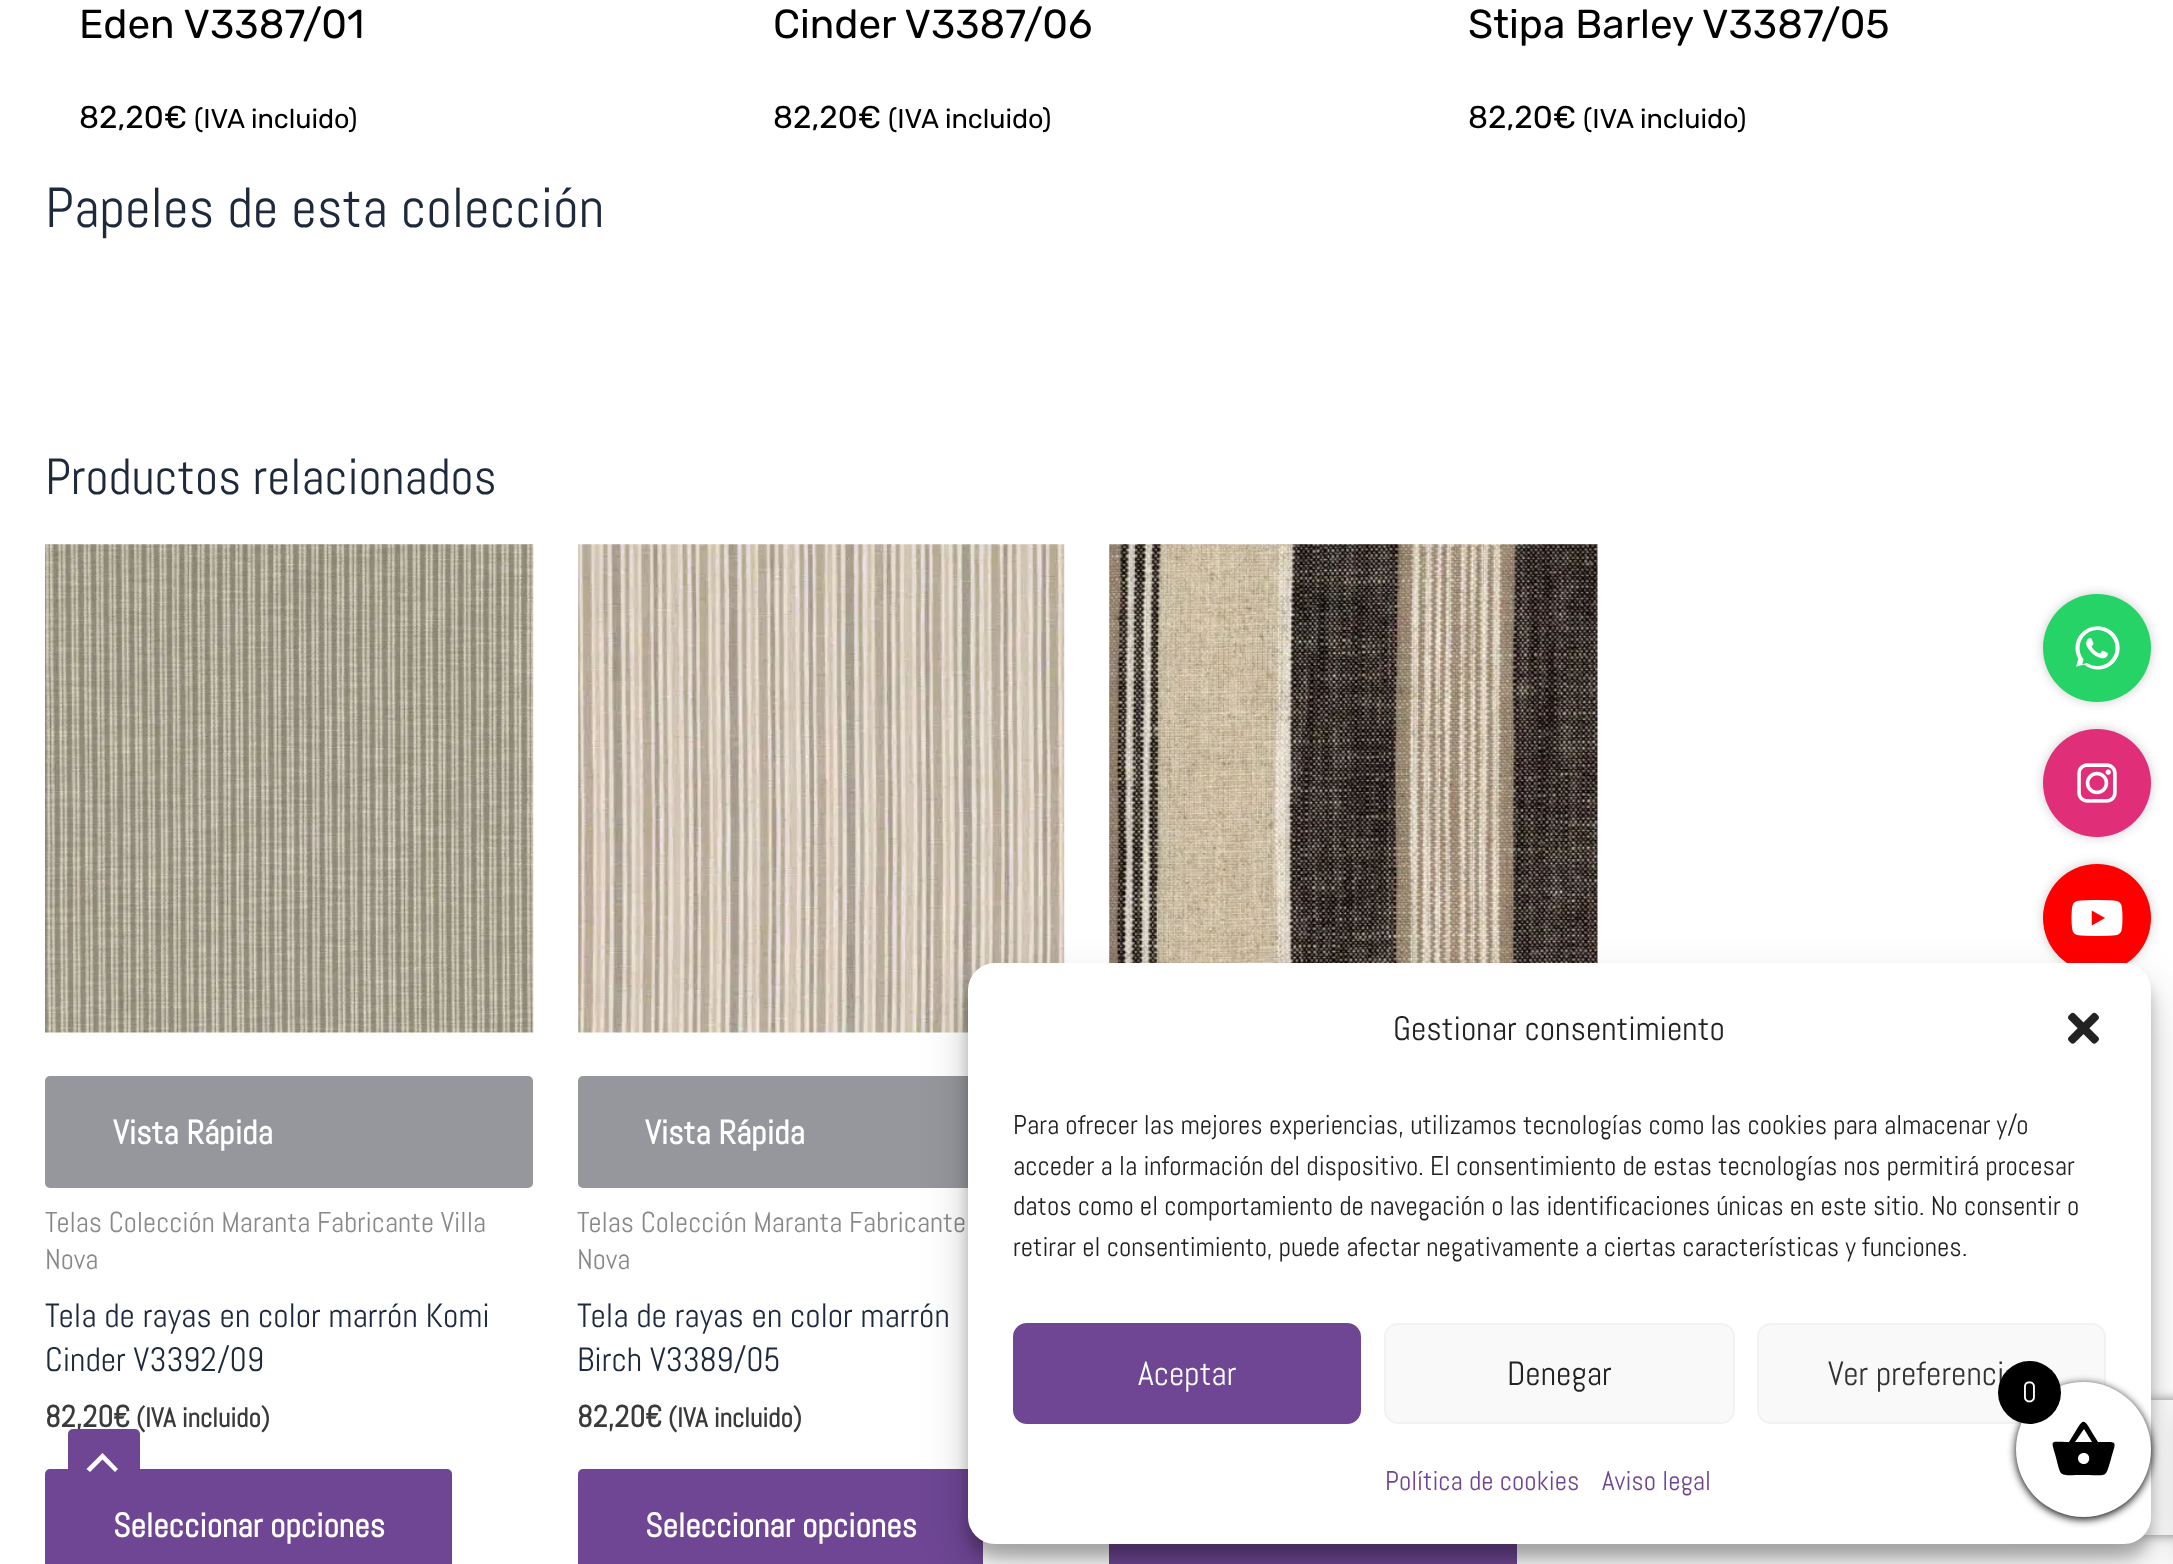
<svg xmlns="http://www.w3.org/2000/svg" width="2173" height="1564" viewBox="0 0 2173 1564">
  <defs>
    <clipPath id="clip1"><path d="M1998 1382H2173V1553H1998ZM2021 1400H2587C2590 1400 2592 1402 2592 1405V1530C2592 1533 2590 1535 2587 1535H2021C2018 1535 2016 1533 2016 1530V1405C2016 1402 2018 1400 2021 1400Z" clip-rule="evenodd"/></clipPath>
  </defs>
  <rect width="100%" height="100%" fill="rgb(255,255,255)"/>
  <text x="79" y="38" font-family="Rubik" font-size="40.5" fill="rgb(0,0,0)">Eden V3387/01</text>
  <text x="79" y="128" font-family="Rubik" font-size="31.5" fill="rgb(0,0,0)">82,20€</text>
  <text x="194" y="128" font-family="Rubik" font-size="27" fill="rgb(0,0,0)">(IVA incluido)</text>
  <text x="773" y="38" font-family="Rubik" font-size="40.5" fill="rgb(0,0,0)">Cinder V3387/06</text>
  <text x="773" y="128" font-family="Rubik" font-size="31.5" fill="rgb(0,0,0)">82,20€</text>
  <text x="888" y="128" font-family="Rubik" font-size="27" fill="rgb(0,0,0)">(IVA incluido)</text>
  <text x="1468" y="38" font-family="Rubik" font-size="40.5" fill="rgb(0,0,0)">Stipa Barley V3387/05</text>
  <text x="1468" y="128" font-family="Rubik" font-size="31.5" fill="rgb(0,0,0)">82,20€</text>
  <text x="1583" y="128" font-family="Rubik" font-size="27" fill="rgb(0,0,0)">(IVA incluido)</text>
  <text x="45" y="227" font-family="Abel" font-size="56.25" fill="rgb(30,41,59)">Papeles de esta colección</text>
  <text x="45" y="494" font-family="Abel" font-size="50.6" fill="rgb(30,41,59)">Productos relacionados</text>
  <image x="45" y="544" width="489" height="489" href="pic1.png"/>
  <rect x="45" y="1076" width="488" height="112" rx="5" fill="rgb(149,151,156)"/>
  <text x="113" y="1144" font-family="Abel" font-size="33.75" font-weight="bold" fill="rgb(255,255,255)">Vista Rápida</text>
  <g font-family="Abel" font-size="28.75" fill="rgb(137,137,137)">
    <text>
      <tspan x="45" y="1232">Telas Colección Maranta Fabricante Villa</tspan>
      <tspan x="45" y="1269">Nova</tspan>
    </text>
  </g>
  <g font-family="Abel" font-size="33.75" fill="rgb(30,41,59)">
    <text>
      <tspan x="45" y="1327">Tela de rayas en color marrón Komi</tspan>
      <tspan x="45" y="1371">Cinder V3392/09</tspan>
    </text>
  </g>
  <text x="45" y="1427" font-family="Abel" font-size="30.5" font-weight="bold" fill="rgb(58,58,58)">82,20€</text>
  <text x="136" y="1427" font-family="Abel" font-size="27" font-weight="bold" fill="rgb(58,58,58)">(IVA incluido)</text>
  <rect x="45" y="1469" width="407" height="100" rx="5" fill="rgb(110,70,147)"/>
  <text x="113" y="1537" font-family="Abel" font-size="33.75" font-weight="bold" fill="rgb(255,255,255)">Seleccionar opciones</text>
  <image x="578" y="544" width="487" height="489" href="pic2.png"/>
  <rect x="578" y="1076" width="486" height="112" rx="5" fill="rgb(149,151,156)"/>
  <text x="645" y="1144" font-family="Abel" font-size="33.75" font-weight="bold" fill="rgb(255,255,255)">Vista Rápida</text>
  <g font-family="Abel" font-size="28.75" fill="rgb(137,137,137)">
    <text>
      <tspan x="577" y="1232">Telas Colección Maranta Fabricante</tspan>
      <tspan x="577" y="1269">Nova</tspan>
    </text>
  </g>
  <g font-family="Abel" font-size="33.75" fill="rgb(30,41,59)">
    <text>
      <tspan x="577" y="1327">Tela de rayas en color marrón</tspan>
      <tspan x="577" y="1371">Birch V3389/05</tspan>
    </text>
  </g>
  <text x="577" y="1427" font-family="Abel" font-size="30.5" font-weight="bold" fill="rgb(58,58,58)">82,20€</text>
  <text x="668" y="1427" font-family="Abel" font-size="27" font-weight="bold" fill="rgb(58,58,58)">(IVA incluido)</text>
  <rect x="578" y="1469" width="405" height="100" rx="5" fill="rgb(110,70,147)"/>
  <text x="645" y="1537" font-family="Abel" font-size="33.75" font-weight="bold" fill="rgb(255,255,255)">Seleccionar opciones</text>
  <image x="1109" y="544" width="489" height="419" href="pic3.png"/>
  <rect x="1109" y="1544" width="408" height="20" fill="rgb(110,70,147)"/>
  <rect x="2043" y="594" width="108" height="108" rx="54" fill="rgba(0,0,0,0.2)" filter="blur(5.5px)"/>
  <circle cx="2097" cy="648" r="54" fill="rgb(37,211,102)"/>
  <image x="2075" y="626" width="45" height="44" href="pic4.png"/>
  <rect x="2043" y="729" width="108" height="108" rx="54" fill="rgba(0,0,0,0.2)" filter="blur(5.5px)"/>
  <circle cx="2097" cy="783" r="54" fill="rgb(224,47,120)"/>
  <image x="2077" y="763" width="40" height="40" href="pic5.png"/>
  <rect x="2043" y="864" width="108" height="108" rx="54" fill="rgba(0,0,0,0.2)" filter="blur(5.5px)"/>
  <circle cx="2097" cy="918" r="54" fill="rgb(255,0,0)"/>
  <image x="2071" y="900" width="52" height="36" href="pic6.png"/>
  <rect x="968" y="977" width="1183" height="580" rx="27" fill="rgba(0,0,0,0.23)" filter="blur(7px)"/>
  <rect x="968" y="986" width="1183" height="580" rx="27" fill="rgba(0,0,0,0.19)" filter="blur(22.5px)"/>
  <g clip-path="url(#clip1)">
    <rect x="2016" y="1400" width="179" height="135" rx="5" fill="rgb(128,128,128)" filter="blur(5.5px)"/>
  </g>
  <rect x="968" y="963" width="1183" height="581" rx="27" fill="rgb(255,255,255)"/>
  <text x="1393" y="1040" font-family="Abel" font-size="33.75" fill="rgb(34,34,34)">Gestionar consentimiento</text>
  <image x="2068" y="1012" width="31" height="32" href="pic7.png"/>
  <g font-family="Abel" font-size="27" fill="rgb(34,34,34)">
    <text>
      <tspan x="1013" y="1134">Para ofrecer las mejores experiencias, utilizamos tecnologías como las cookies para almacenar y/o</tspan>
      <tspan x="1013" y="1175">acceder a la información del dispositivo. El consentimiento de estas tecnologías nos permitirá procesar</tspan>
      <tspan x="1013" y="1215">datos como el comportamiento de navegación o las identificaciones únicas en este sitio. No consentir o</tspan>
      <tspan x="1013" y="1256">retirar el consentimiento, puede afectar negativamente a ciertas características y funciones.</tspan>
    </text>
  </g>
  <rect x="1014" y="1324" width="346" height="99" rx="13" fill="rgb(110,70,147)" stroke="rgb(110,70,147)" stroke-width="2"/>
  <text x="1138" y="1385" font-family="Abel" font-size="33.75" fill="rgb(255,255,255)">Aceptar</text>
  <rect x="1385" y="1324" width="349" height="99" rx="13" fill="rgb(249,249,249)" stroke="rgb(242,242,242)" stroke-width="2"/>
  <text x="1507" y="1385" font-family="Abel" font-size="33.75" fill="rgb(34,34,34)">Denegar</text>
  <rect x="1758" y="1324" width="347" height="99" rx="13" fill="rgb(249,249,249)" stroke="rgb(242,242,242)" stroke-width="2"/>
  <text x="1828" y="1385" font-family="Abel" font-size="33.75" fill="rgb(51,51,51)">Ver preferenci</text>
  <g font-family="Abel" font-size="27" fill="rgb(110,70,147)">
    <text x="1385" y="1490">Política de cookies</text>
    <text x="1602" y="1490">Aviso legal</text>
  </g>
  <rect x="2016" y="1384" width="135" height="135" rx="67.5" fill="rgb(0,0,0)" filter="blur(4.5px)"/>
  <rect x="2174" y="1411" width="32" height="153" fill="rgba(0,0,0,0.1)" filter="blur(11px)"/>
  <circle cx="2083.5" cy="1449.5" r="67.5" fill="rgb(255,255,255)"/>
  <path d="M2084 1464C2091 1464 2091 1453 2084 1453C2076 1453 2076 1464 2084 1464ZM2075 1442H2092L2084 1429ZM2098 1442C2119 1442 2116 1440 2111 1459C2105 1479 2108 1475 2084 1475C2057 1475 2062 1479 2055 1454C2051 1439 2050 1442 2069 1442C2086 1415 2081 1415 2098 1442Z" fill="rgb(0,0,0)"/>
  <circle cx="2029.5" cy="1392.5" r="31.5" fill="rgb(0,0,0)"/>
  <text x="2022" y="1402" font-family="Abel" font-size="29" fill="rgb(255,255,255)">0</text>
  <rect x="68" y="1429" width="72" height="70" rx="5" fill="rgb(110,70,147)"/>
  <path d="M118 1469L102.5 1453L86.5 1469L90 1472L102.5 1459.5L115 1472Z" fill="rgb(255,255,255)"/>
</svg>
